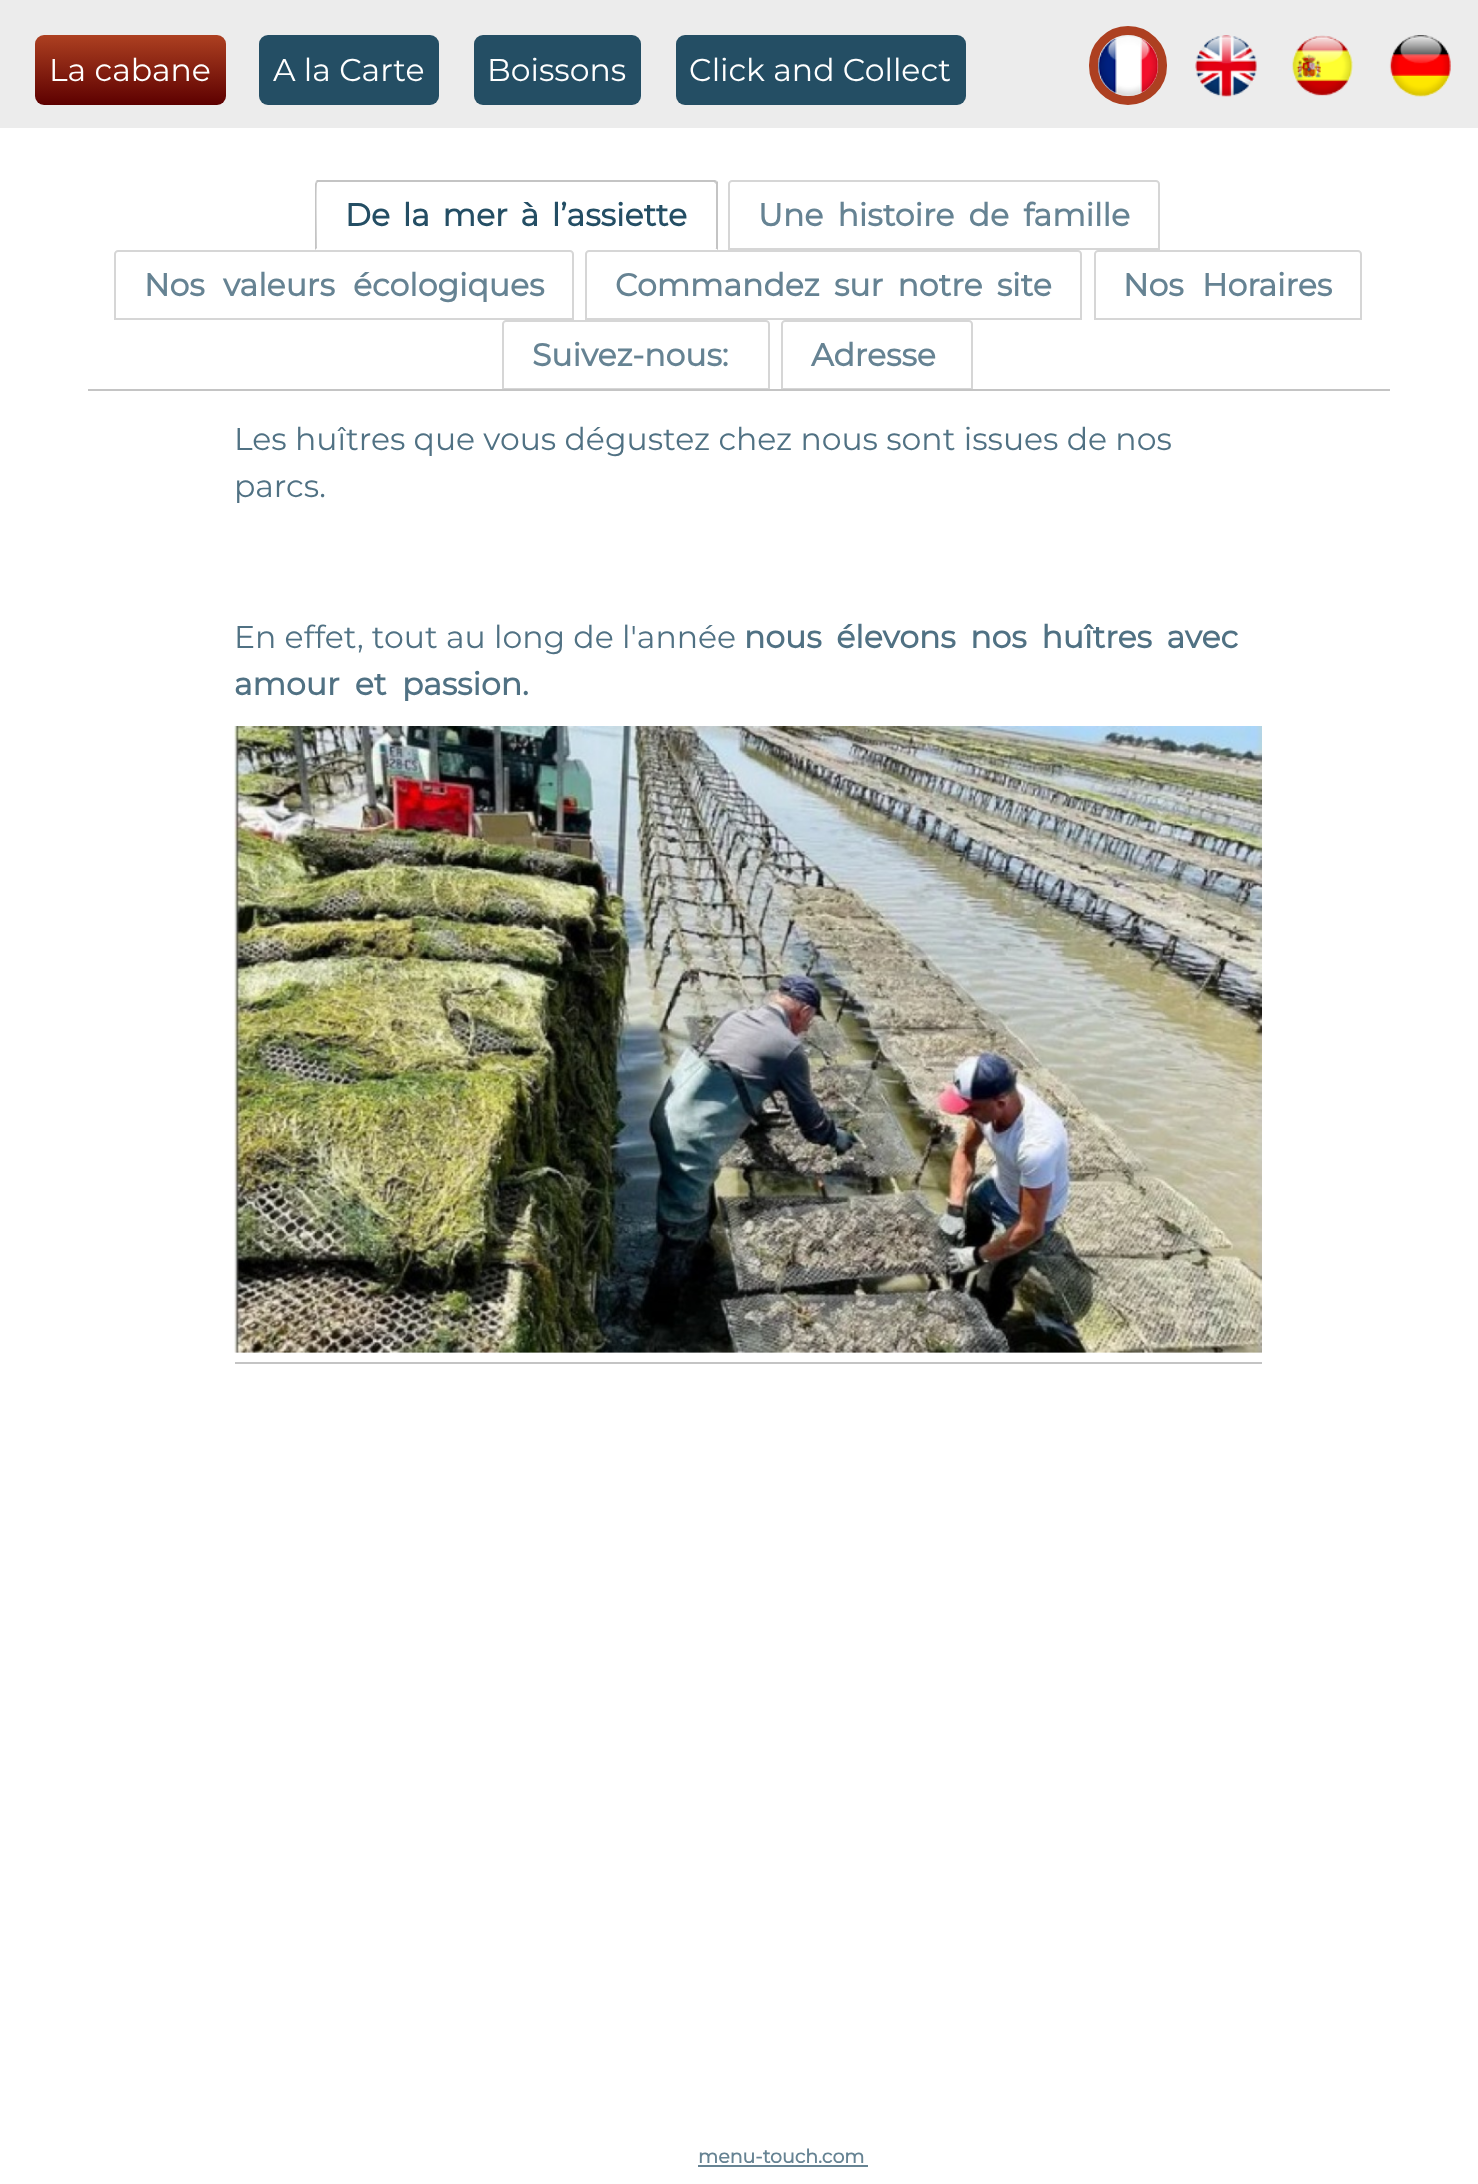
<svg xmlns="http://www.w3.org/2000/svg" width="1478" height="2184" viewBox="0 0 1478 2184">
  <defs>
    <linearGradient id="g1" gradientUnits="userSpaceOnUse" x1="130" y1="35" x2="130" y2="105"><stop offset="0" stop-color="rgb(173,64,33)"/><stop offset="1" stop-color="rgb(93,0,0)"/></linearGradient>
  </defs>
  <rect width="100%" height="100%" fill="rgb(255,255,255)"/>
  <rect x="0" y="0" width="1478" height="128" fill="rgb(236,236,236)"/>
  <rect x="35" y="35" width="191" height="70" rx="9" fill="url(#g1)"/>
  <text x="49" y="81" font-family="Montserrat" font-size="31.5" fill="rgb(255,255,255)">La cabane</text>
  <rect x="259" y="35" width="180" height="70" rx="9" fill="rgb(36,78,100)"/>
  <text x="273" y="81" font-family="Montserrat" font-size="31.5" fill="rgb(255,255,255)">A la Carte</text>
  <rect x="474" y="35" width="167" height="70" rx="9" fill="rgb(36,78,100)"/>
  <text x="487" y="81" font-family="Montserrat" font-size="31.5" fill="rgb(255,255,255)">Boissons</text>
  <rect x="676" y="35" width="290" height="70" rx="9" fill="rgb(36,78,100)"/>
  <text x="689" y="81" font-family="Montserrat" font-size="31.5" fill="rgb(255,255,255)">Click and Collect</text>
  <rect x="1093.5" y="30.5" width="69" height="70" rx="34.5" fill="none" stroke="rgb(173,64,33)" stroke-width="9"/>
  <image x="1097" y="35" width="62" height="62" href="pic1.png"/>
  <image x="1195" y="35" width="62" height="62" href="pic2.png"/>
  <image x="1291" y="35" width="62" height="61" href="pic3.png"/>
  <image x="1389" y="35" width="62" height="62" href="pic4.png"/>
  <path d="M318 182L317 183L316 181L317 180H715L717 181L715 183L714 182Z" fill="rgb(196,196,196)"/>
  <path d="M718 250L715 248H716V184L715 183L717 181L718 182Z" fill="rgb(196,196,196)"/>
  <path d="M717 250H315L317 248H715Z" fill="rgb(255,255,255)"/>
  <path d="M315 184V250L317 248C317 241 316 185 317 183L316 181Z" fill="rgb(196,196,196)"/>
  <text x="345" y="226" word-spacing="4.5" font-family="Montserrat" font-size="31.5" font-weight="bold" fill="rgb(36,78,100)">De la mer à l’assiette</text>
  <path d="M732 181H1156C1157.5 181 1159 182.5 1159 184V249H729V184C729 182.5 730.5 181 732 181Z" fill="none" stroke="rgb(214,214,214)" stroke-width="2"/>
  <text x="758" y="226" word-spacing="6" font-family="Montserrat" font-size="31.5" font-weight="bold" fill="rgb(102,131,147)">Une histoire de famille</text>
  <path d="M118 251H570C571.5 251 573 252.5 573 254V319H115V254C115 252.5 116.5 251 118 251Z" fill="none" stroke="rgb(214,214,214)" stroke-width="2"/>
  <text x="144" y="296" word-spacing="10" font-family="Montserrat" font-size="31.5" font-weight="bold" fill="rgb(102,131,147)">Nos valeurs écologiques</text>
  <path d="M589 251H1078C1079.5 251 1081 252.5 1081 254V319H586V254C586 252.5 587.5 251 589 251Z" fill="none" stroke="rgb(214,214,214)" stroke-width="2"/>
  <text x="615" y="296" word-spacing="6" font-family="Montserrat" font-size="31.5" font-weight="bold" fill="rgb(102,131,147)">Commandez sur notre site</text>
  <path d="M1098 251H1358C1359.5 251 1361 252.5 1361 254V319H1095V254C1095 252.5 1096.5 251 1098 251Z" fill="none" stroke="rgb(214,214,214)" stroke-width="2"/>
  <text x="1123" y="296" word-spacing="10" font-family="Montserrat" font-size="31.5" font-weight="bold" fill="rgb(102,131,147)">Nos Horaires</text>
  <rect x="88" y="389" width="1302" height="2" fill="rgb(196,196,196)"/>
  <path d="M506 321H766C767.5 321 769 322.5 769 324V389H503V324C503 322.5 504.5 321 506 321Z" fill="none" stroke="rgba(196,196,196,0.7)" stroke-width="2"/>
  <text x="532" y="366" font-family="Montserrat" font-size="31.5" font-weight="bold" fill="rgb(102,131,147)">Suivez-nous:</text>
  <path d="M785 321H969C970.5 321 972 322.5 972 324V389H782V324C782 322.5 783.5 321 785 321Z" fill="none" stroke="rgba(196,196,196,0.7)" stroke-width="2"/>
  <text x="811" y="366" font-family="Montserrat" font-size="31.5" font-weight="bold" fill="rgb(102,131,147)">Adresse</text>
  <rect x="235" y="1362" width="1027" height="2" fill="rgb(196,196,196)"/>
  <g font-family="Montserrat" font-size="31.5" fill="rgb(80,113,131)">
    <text>
      <tspan x="234" y="450">Les huîtres que vous dégustez chez nous sont issues de nos</tspan>
      <tspan x="234" y="497">parcs.</tspan>
    </text>
    <text x="234" y="648">En effet, tout au long de l'année</text>
  </g>
  <g font-family="Montserrat" font-size="31.5" font-weight="bold" fill="rgb(80,113,131)">
    <text x="744" y="648" word-spacing="6.5">nous élevons nos huîtres avec</text>
    <text x="234" y="695" word-spacing="7">amour et passion.</text>
  </g>
  <image x="234" y="726" width="1028" height="627" href="pic5.png"/>
  <text x="698" y="2163" font-family="Montserrat" font-size="19" font-weight="bold" fill="rgb(102,131,147)">menu-touch.com</text>
  <rect x="698" y="2165" width="170" height="2" fill="rgb(102,131,147)"/>
</svg>
